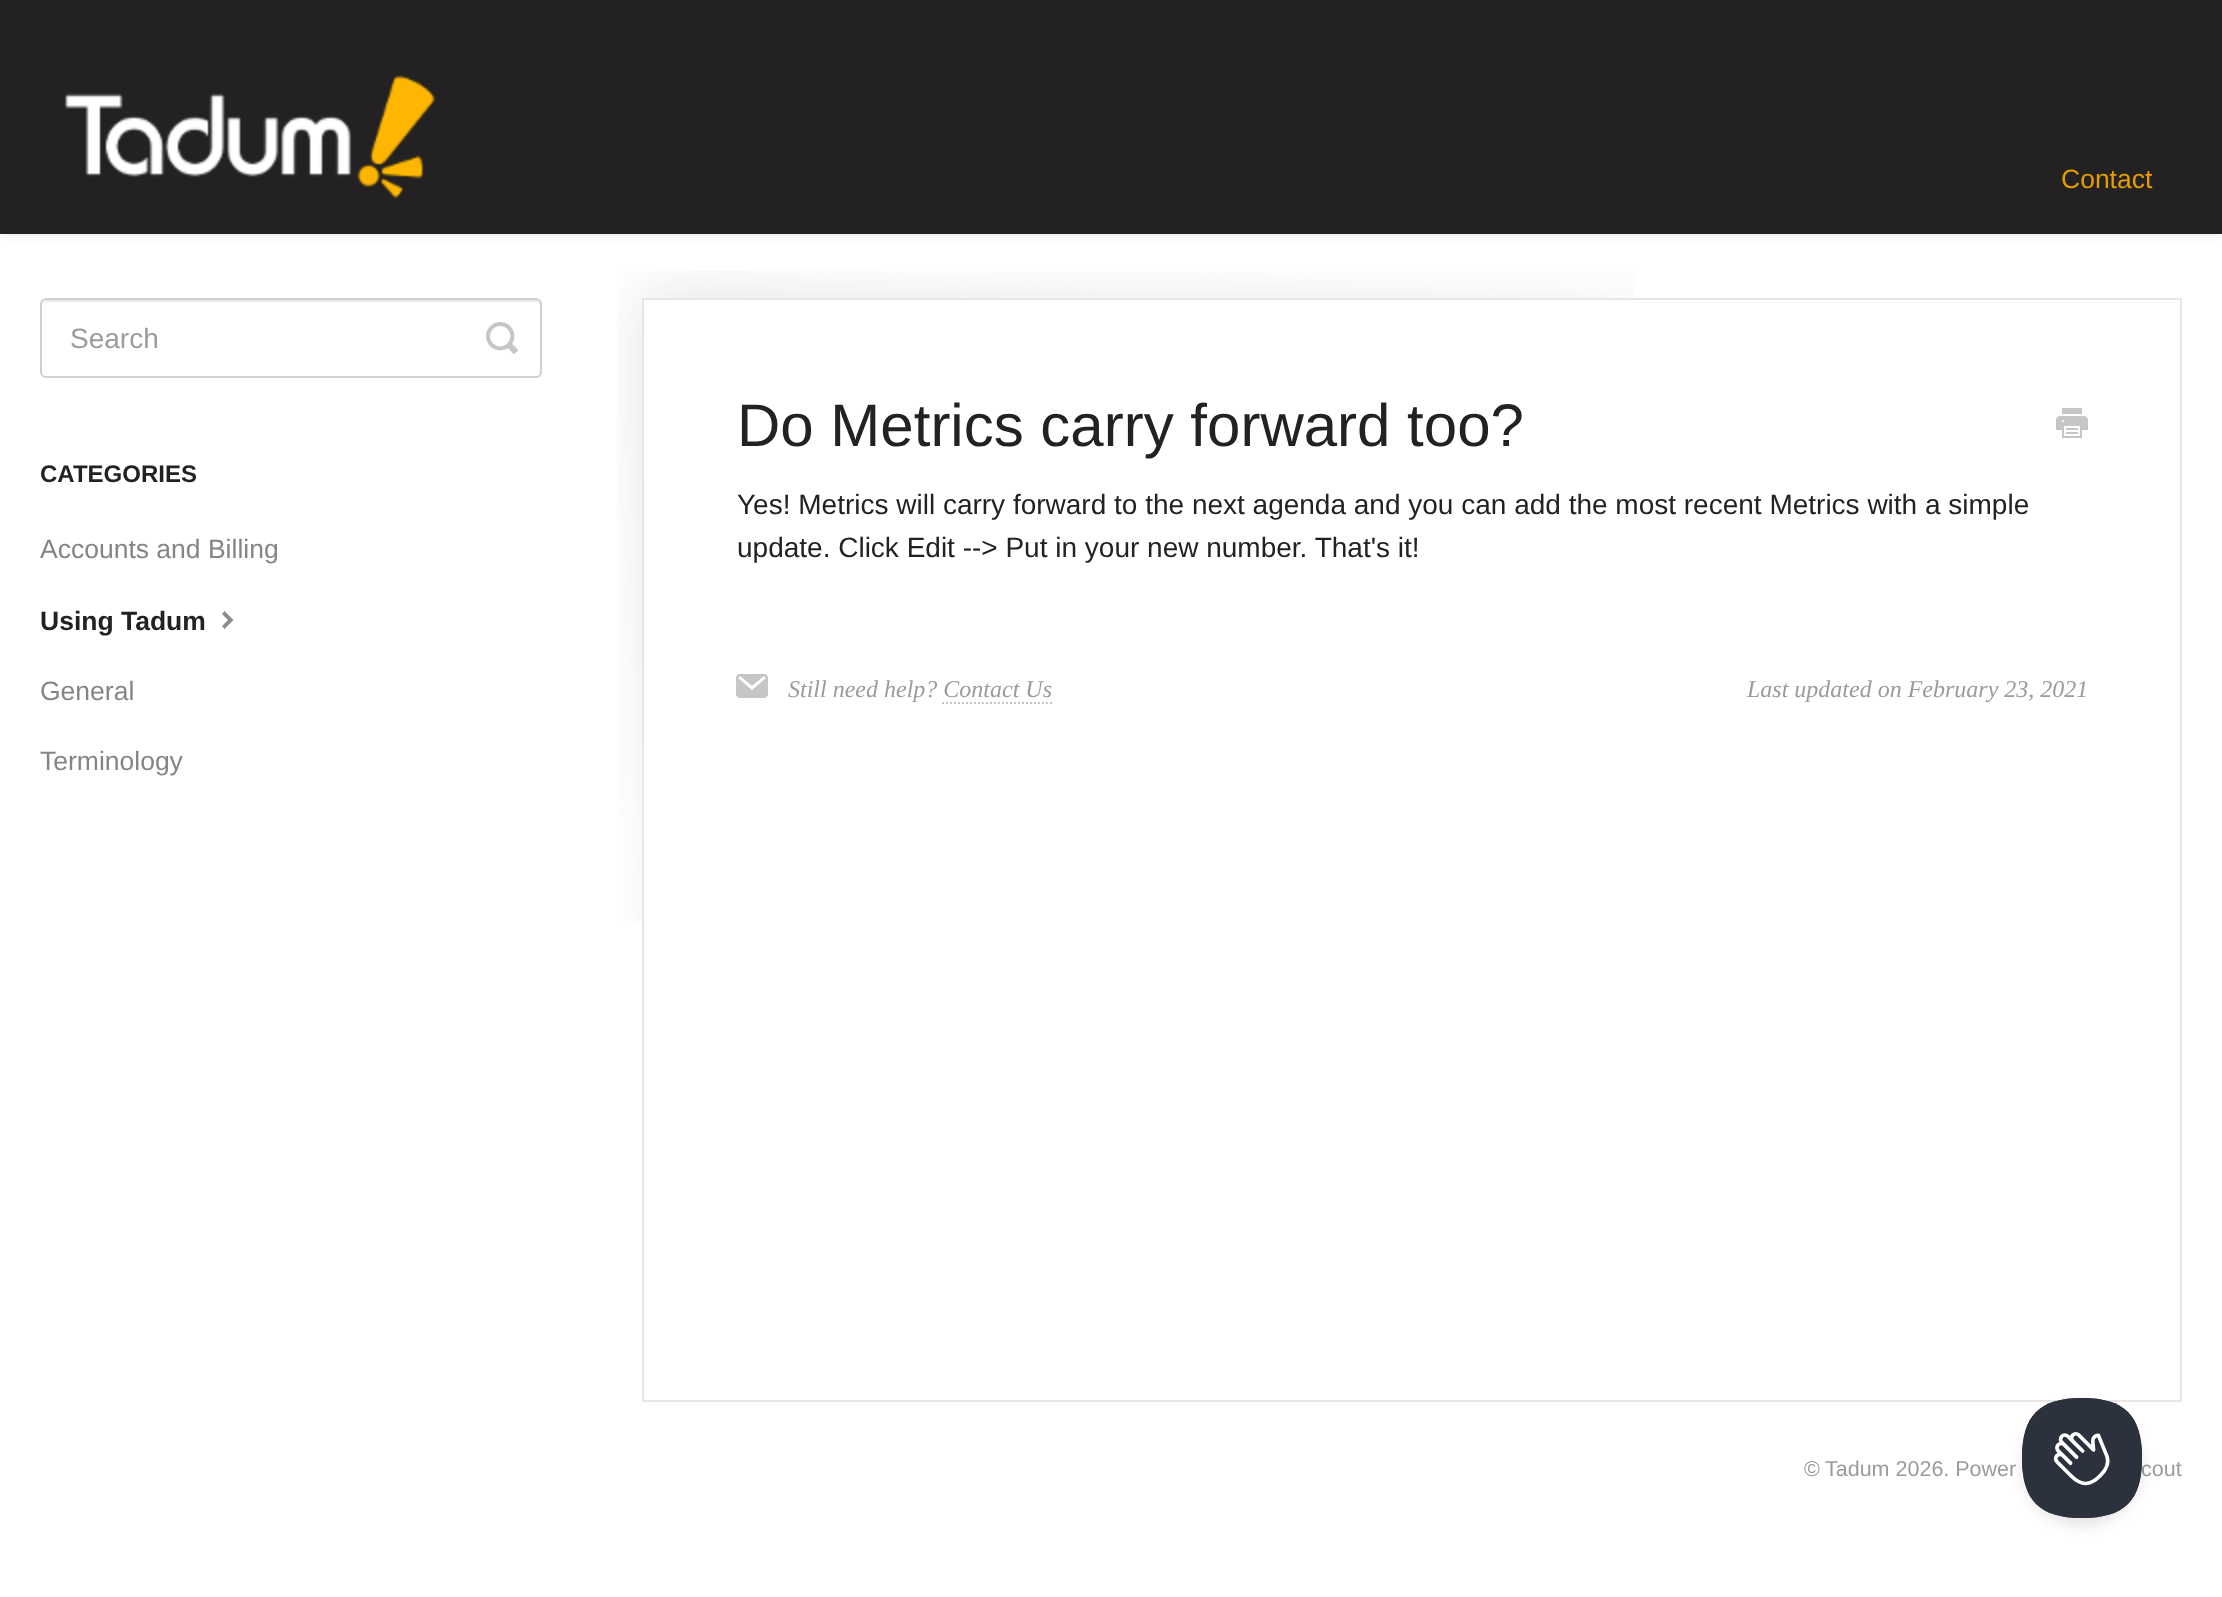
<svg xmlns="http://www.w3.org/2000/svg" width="2222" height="1597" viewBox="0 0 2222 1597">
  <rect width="100%" height="100%" fill="rgb(255,255,255)"/>
  <rect x="0" y="2" width="2222" height="234" fill="rgba(0,0,0,0.07)" filter="blur(4px)"/>
  <rect x="0" y="0" width="2222" height="234" fill="rgb(35,33,33)"/>
  <image x="64" y="75" width="372" height="124" href="pic1.png"/>
  <text x="2061" y="188" font-family="Liberation Sans" font-size="26.5" fill="rgb(230,157,0)">Contact</text>
  <path d="M46 302H536C538 302 540 304 540 306C540 303 540 300 536 300H46C42 300 42 303 42 306C42 304 44 302 46 302Z" fill="rgb(236,236,236)"/>
  <rect x="41" y="299" width="500" height="78" rx="5" fill="none" stroke="rgb(208,208,208)" stroke-width="2"/>
  <text x="70" y="348" font-family="Liberation Sans" font-size="28" fill="rgb(155,155,155)">Search</text>
  <image x="486" y="322" width="32" height="32" href="pic2.png"/>
  <text x="40" y="482" font-family="Liberation Sans" font-size="24" font-weight="bold" fill="rgb(34,34,34)">CATEGORIES</text>
  <text x="40" y="558" font-family="Liberation Sans" font-size="26.5" fill="rgb(133,133,133)">Accounts and Billing</text>
  <text x="40" y="630" font-family="Liberation Sans" font-size="26.5" font-weight="bold" fill="rgb(34,34,34)">Using Tadum</text>
  <path d="M224.5 611L222 614L228 620L222 626L224.5 629L233.5 620Z" fill="rgb(141,141,141)"/>
  <g font-family="Liberation Sans" font-size="26.5" fill="rgb(133,133,133)">
    <text x="40" y="700">General</text>
    <text x="40" y="770">Terminology</text>
  </g>
  <image x="617" y="271" width="1018" height="650" href="pic3.png"/>
  <rect x="643" y="299" width="1538" height="1102" fill="none" stroke="rgb(233,229,229)" stroke-width="2"/>
  <text x="737" y="446" font-family="Liberation Sans" font-size="60" fill="rgb(34,34,34)">Do Metrics carry forward too?</text>
  <image x="2056" y="408" width="32" height="30" href="pic4.png"/>
  <g font-family="Liberation Sans" font-size="28" fill="rgb(34,34,34)">
    <text>
      <tspan x="737" y="514">Yes! Metrics will carry forward to the next agenda and you can add the most recent Metrics with a simple</tspan>
      <tspan x="737" y="557">update. Click Edit --&gt; Put in your new number. That's it!</tspan>
    </text>
  </g>
  <image x="736" y="674" width="32" height="24" href="pic5.png"/>
  <text x="788" y="697" font-family="Liberation Serif" font-size="24" font-style="italic" fill="rgb(155,155,155)">Still need help? Contact Us</text>
  <path d="M942 703H1052" fill="none" stroke="rgb(197,197,197)" stroke-width="2" stroke-dasharray="2 2"/>
  <text x="1747" y="697" font-family="Liberation Serif" font-size="24" font-style="italic" fill="rgb(155,155,155)">Last updated on February 23, 2021</text>
  <g font-family="Liberation Sans" font-size="21.5" fill="rgb(155,155,155)">
    <text x="1804" y="1476">©</text>
    <text x="1825" y="1476">Tadum 2026. Power</text>
    <text x="2141" y="1476">cout</text>
  </g>
  <rect x="2022" y="1406" width="120" height="120" rx="60" fill="rgba(0,0,0,0.1)" filter="blur(7px)"/>
  <image x="2022" y="1398" width="120" height="120" href="pic6.png"/>
</svg>
